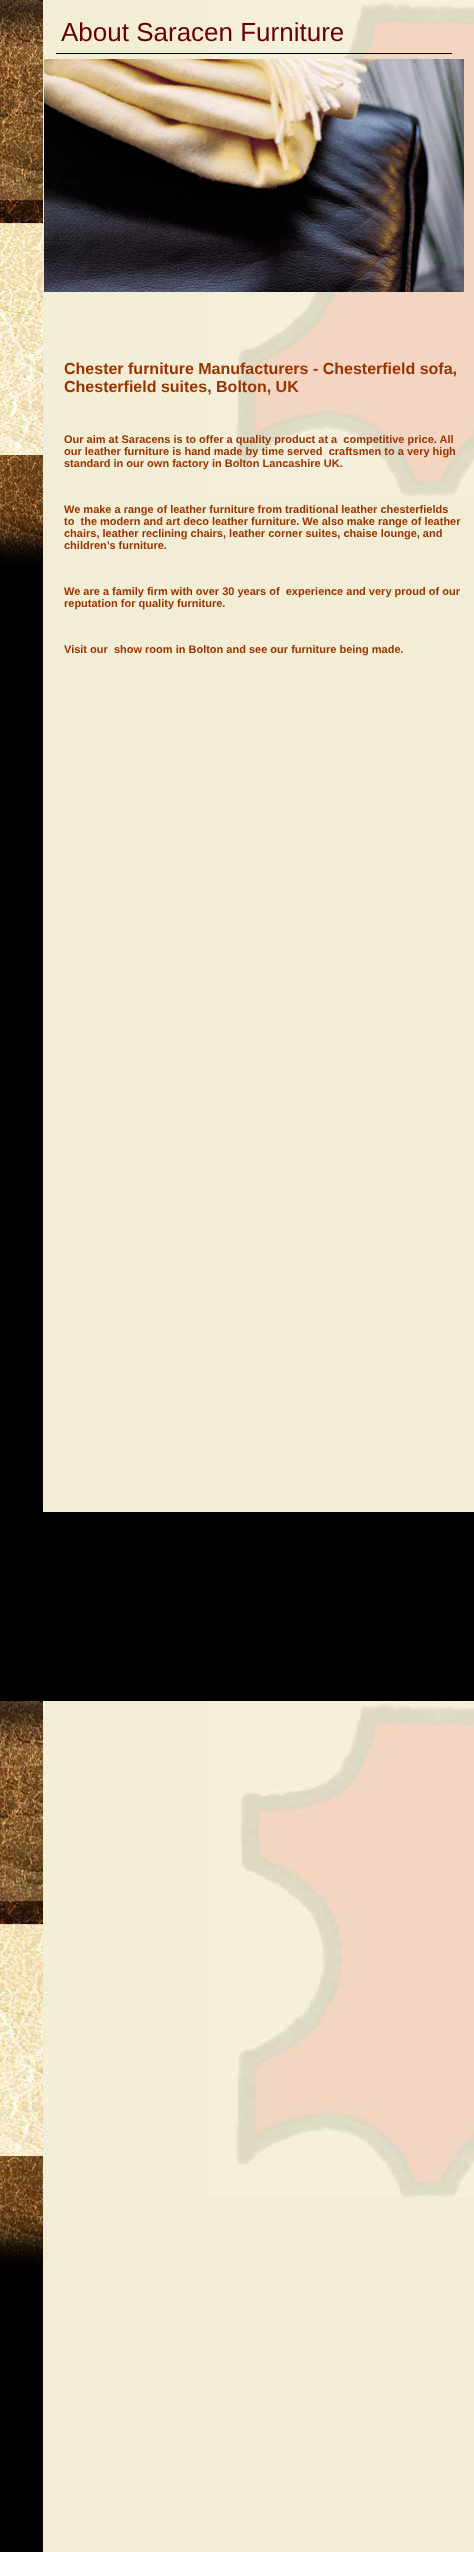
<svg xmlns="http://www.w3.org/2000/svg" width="474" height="2552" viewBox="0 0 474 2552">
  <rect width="100%" height="100%" fill="rgb(255,255,255)"/>
  <image x="0" y="0" width="474" height="2552" href="pic1.png"/>
  <rect x="56" y="53" width="396" height="1" fill="rgb(0,0,0)"/>
  <text x="61" y="41" font-family="Liberation Sans" font-size="26" fill="rgb(102,0,0)">About Saracen Furniture</text>
  <image x="44" y="59" width="420" height="233" href="pic2.png"/>
  <g font-family="Liberation Sans" font-size="16" font-weight="bold" fill="rgb(153,51,0)">
    <text>
      <tspan x="64" y="374">Chester furniture Manufacturers - Chesterfield sofa,</tspan>
      <tspan x="64" y="392">Chesterfield suites, Bolton, UK</tspan>
    </text>
  </g>
  <g font-family="Liberation Sans" font-size="11" font-weight="bold" fill="rgb(153,51,0)">
    <text xml:space="preserve"><tspan x="64" y="443">Our aim at Saracens is to offer a quality product at a  competitive price. All</tspan><tspan x="64" y="455">our leather furniture is hand made by time served  craftsmen to a very high</tspan><tspan x="64" y="467">standard in our own factory in Bolton Lancashire UK.</tspan></text>
    <text xml:space="preserve"><tspan x="64" y="513">We make a range of leather furniture from traditional leather chesterfields</tspan><tspan x="64" y="525">to  the modern and art deco leather furniture. We also make range of leather</tspan><tspan x="64" y="537">chairs, leather reclining chairs, leather corner suites, chaise lounge, and</tspan><tspan x="64" y="549">children’s furniture.</tspan></text>
    <text xml:space="preserve"><tspan x="64" y="595">We are a family firm with over 30 years of  experience and very proud of our</tspan><tspan x="64" y="607">reputation for quality furniture.</tspan></text>
    <text x="64" y="653" xml:space="preserve">Visit our  show room in Bolton and see our furniture being made.</text>
  </g>
</svg>
